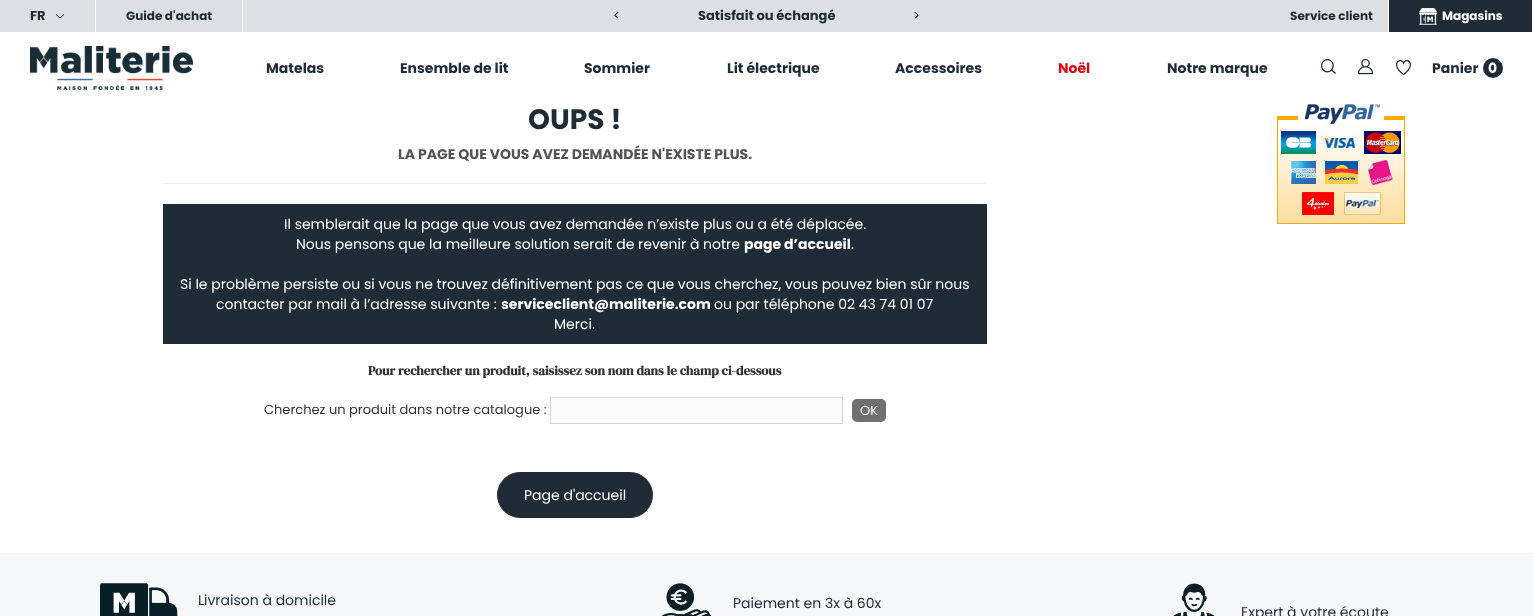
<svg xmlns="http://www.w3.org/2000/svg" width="1533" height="616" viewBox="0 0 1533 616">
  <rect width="100%" height="100%" fill="rgb(255,255,255)"/>
  <rect x="0" y="0" width="1388" height="32" fill="rgb(221,224,226)"/>
  <text x="30" y="20" font-family="Poppins" font-size="13" font-weight="bold" fill="rgb(31,44,56)">FR</text>
  <path d="M56 14.5L60 18L64 14.5" fill="none" stroke="rgb(31,44,56)"/>
  <rect x="242" y="0" width="1" height="32" fill="rgb(255,255,255)"/>
  <rect x="95" y="0" width="1" height="32" fill="rgb(255,255,255)"/>
  <text x="126" y="20" font-family="Poppins" font-size="12" font-weight="bold" fill="rgb(31,44,56)">Guide d'achat</text>
  <text x="613" y="20" font-family="Poppins" font-size="13" fill="rgb(0,0,0)">&lt;</text>
  <text x="698" y="20" font-family="Poppins" font-size="13" font-weight="bold" fill="rgb(31,44,56)">Satisfait ou échangé</text>
  <text x="913" y="20" font-family="Poppins" font-size="13" fill="rgb(0,0,0)">&gt;</text>
  <text x="1290" y="20" font-family="Poppins" font-size="12" font-weight="bold" fill="rgb(31,44,56)">Service client</text>
  <rect x="1389" y="0" width="143" height="32" fill="rgb(31,44,56)"/>
  <image x="1419" y="8" width="18" height="17" href="pic1.png"/>
  <text x="1442" y="20" font-family="Poppins" font-size="12" font-weight="bold" fill="rgb(255,255,255)">Magasins</text>
  <image x="30" y="46" width="163" height="44" href="pic2.png"/>
  <g font-family="Poppins" font-size="14" font-weight="bold" fill="rgb(31,44,56)">
    <text x="266" y="73">Matelas</text>
    <text x="400" y="73">Ensemble de lit</text>
    <text x="584" y="73">Sommier</text>
    <text x="727" y="73">Lit électrique</text>
    <text x="895" y="73">Accessoires</text>
  </g>
  <text x="1058" y="73" font-family="Poppins" font-size="14" font-weight="bold" fill="rgb(227,6,19)">Noël</text>
  <text x="1167" y="73" font-family="Poppins" font-size="14" font-weight="bold" fill="rgb(31,44,56)">Notre marque</text>
  <image x="1321" y="59" width="15" height="15" href="pic3.png"/>
  <image x="1357" y="58" width="17" height="17" href="pic4.png"/>
  <image x="1396" y="60" width="15" height="15" href="pic5.png"/>
  <text x="1432" y="73" font-family="Poppins" font-size="14" font-weight="bold" fill="rgb(31,44,56)">Panier</text>
  <circle cx="1493" cy="68" r="10" fill="rgb(31,44,56)"/>
  <text x="1488" y="73" font-family="Poppins" font-size="14" font-weight="bold" fill="rgb(255,255,255)">0</text>
  <text x="528" y="129" font-family="Poppins" font-size="28" font-weight="bold" fill="rgb(31,44,56)">OUPS !</text>
  <rect x="163" y="183" width="824" height="1" fill="rgb(238,238,238)"/>
  <text x="398" y="159" font-family="Poppins" font-size="14" font-weight="bold" fill="rgb(85,84,84)">LA PAGE QUE VOUS AVEZ DEMANDÉE N'EXISTE PLUS.</text>
  <rect x="163" y="204" width="824" height="140" fill="rgb(31,44,56)"/>
  <g font-family="Poppins" font-size="14" fill="rgb(255,255,255)">
    <text x="284" y="229">Il semblerait que la page que vous avez demandée n’existe plus ou a été déplacée.</text>
    <text x="296" y="249">Nous pensons que la meilleure solution serait de revenir à notre</text>
  </g>
  <text x="744" y="249" font-family="Poppins" font-size="14" font-weight="bold" fill="rgb(255,255,255)">page d’accueil</text>
  <g font-family="Poppins" font-size="14" fill="rgb(255,255,255)">
    <text x="851" y="249">.</text>
    <text x="180" y="289">Si le problème persiste ou si vous ne trouvez définitivement pas ce que vous cherchez, vous pouvez bien sûr nous</text>
    <text x="216" y="309">contacter par mail à l’adresse suivante :</text>
  </g>
  <text x="501" y="309" font-family="Poppins" font-size="14" font-weight="bold" fill="rgb(255,255,255)">serviceclient@maliterie.com</text>
  <g font-family="Poppins" font-size="14" fill="rgb(255,255,255)">
    <text x="714" y="309">ou par téléphone 02 43 74 01 07</text>
    <text x="554" y="329">Merci.</text>
  </g>
  <text x="368" y="375" font-family="DM Serif Display" font-size="13" font-weight="bold" fill="rgb(51,51,51)">Pour rechercher un produit, saisissez son nom dans le champ ci-dessous</text>
  <text x="264" y="414" font-family="Poppins" font-size="13" fill="rgb(51,51,51)">Cherchez un produit dans notre catalogue :</text>
  <rect x="550.5" y="397.5" width="292" height="26" fill="rgb(251,251,251)" stroke="rgb(214,212,212)"/>
  <rect x="852" y="399" width="34" height="23" rx="5" fill="rgb(111,111,111)"/>
  <text x="860" y="415" font-family="Poppins" font-size="13" fill="rgb(255,255,255)">OK</text>
  <rect x="497.5" y="472.5" width="155" height="45" rx="22.5" fill="rgb(31,44,56)" stroke="rgb(31,44,56)"/>
  <text x="524" y="500" font-family="Poppins" font-size="14" fill="rgb(255,255,255)">Page d'accueil</text>
  <image x="1277" y="104" width="128" height="120" href="pic6.png"/>
  <rect x="0" y="553" width="1533" height="63" fill="rgb(246,247,248)"/>
  <image x="100" y="583" width="78" height="33" href="pic7.png"/>
  <text x="198" y="605" font-family="Poppins" font-size="14" fill="rgb(31,44,56)">Livraison à domicile</text>
  <image x="661" y="583" width="51" height="33" href="pic8.png"/>
  <text x="733" y="608" font-family="Poppins" font-size="14" fill="rgb(31,44,56)">Paiement en 3x à 60x</text>
  <image x="1173" y="583" width="42" height="33" href="pic9.png"/>
  <text x="1241" y="617" font-family="Poppins" font-size="14" fill="rgb(31,44,56)">Expert à votre écoute</text>
</svg>
